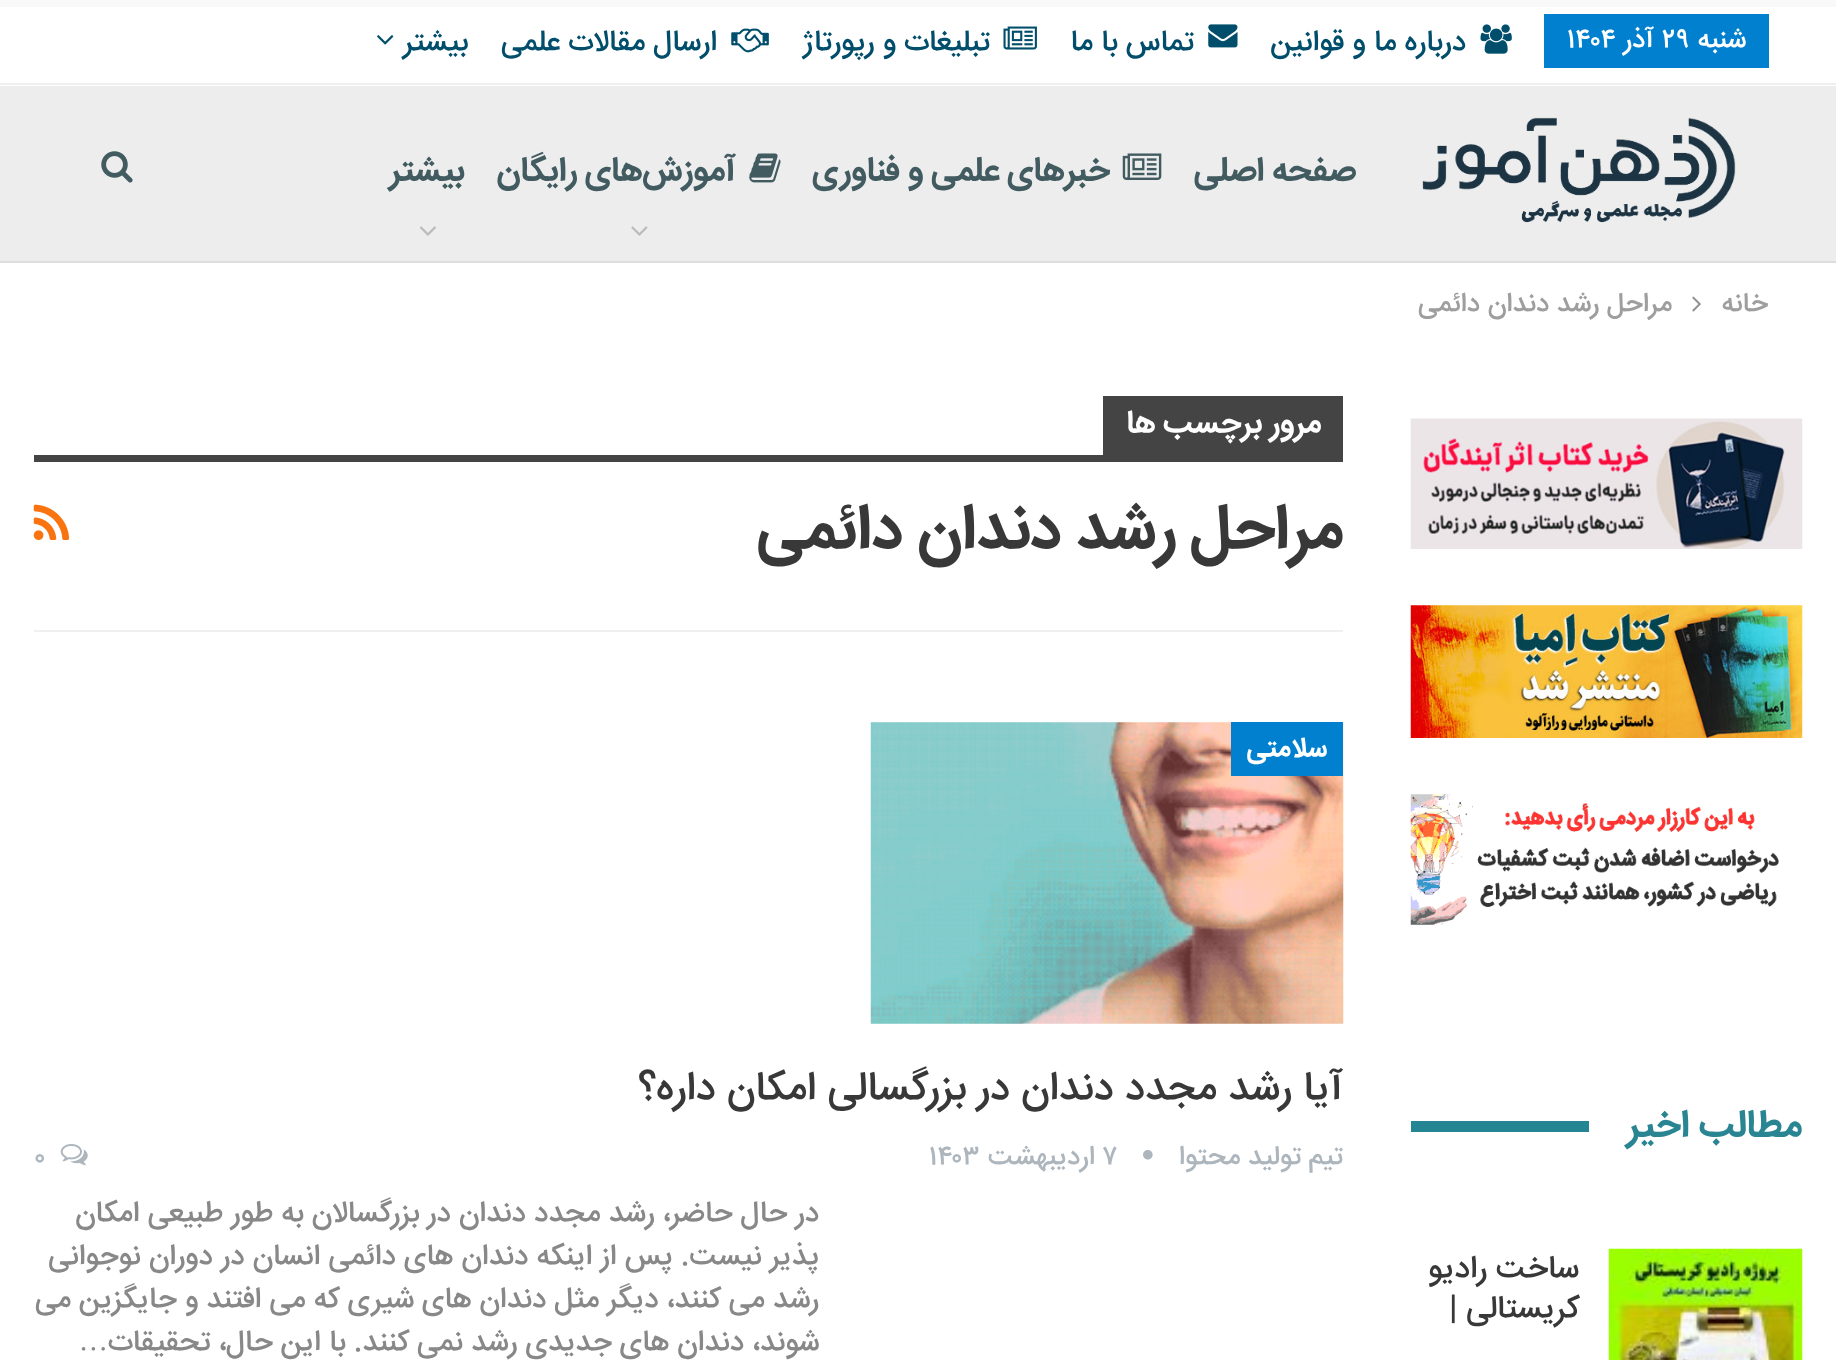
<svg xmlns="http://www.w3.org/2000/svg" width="1836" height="1360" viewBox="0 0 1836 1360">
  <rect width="100%" height="100%" fill="rgb(255,255,255)"/>
  <rect x="0" y="0" width="1836" height="7" fill="rgb(249,249,249)"/>
  <rect x="0" y="86" width="1836" height="175" fill="rgb(237,237,237)"/>
  <rect x="0" y="261" width="1836" height="2" fill="rgb(222,222,222)"/>
  <rect x="0" y="83" width="1836" height="2" fill="rgb(239,239,239)"/>
  <rect x="1544" y="14" width="225" height="54" fill="rgb(0,128,206)"/>
  <text x="1746" y="47" font-family="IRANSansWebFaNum" font-size="27" font-weight="500" direction="rtl" fill="rgb(255,255,255)">شنبه</text>
  <text x="1662" y="47" font-family="IRANSansWebFaNum" font-size="27" font-weight="500" fill="rgb(255,255,255)">۲۹</text>
  <text x="1654" y="47" font-family="IRANSansWebFaNum" font-size="27" font-weight="500" direction="rtl" fill="rgb(255,255,255)">آذر</text>
  <text x="1567" y="47" font-family="IRANSansWebFaNum" font-size="27" font-weight="500" fill="rgb(255,255,255)">۱۴۰۴</text>
  <image x="1480" y="24" width="32" height="30" href="pic1.png"/>
  <text x="1466" y="50" font-family="IRANSansWebFaNum" font-size="29.25" font-weight="500" direction="rtl" fill="rgb(0,78,107)">درباره ما و قوانین</text>
  <image x="1208" y="24" width="30" height="24" href="pic2.png"/>
  <text x="1194" y="50" font-family="IRANSansWebFaNum" font-size="29.25" font-weight="500" direction="rtl" fill="rgb(0,78,107)">تماس با ما</text>
  <image x="1003" y="26" width="34" height="24" href="pic3.png"/>
  <text x="990" y="50" font-family="IRANSansWebFaNum" font-size="29.25" font-weight="500" direction="rtl" fill="rgb(0,78,107)">تبلیغات و رپورتاژ</text>
  <image x="731" y="28" width="38" height="25" href="pic4.png"/>
  <g font-family="IRANSansWebFaNum" font-size="29.25" font-weight="500" direction="rtl" fill="rgb(0,78,107)">
    <text x="717" y="50">ارسال مقالات علمی</text>
    <text x="468" y="50">بیشتر</text>
  </g>
  <image x="377" y="35" width="17" height="10" href="pic5.png"/>
  <image x="1422" y="117" width="314" height="106" href="pic6.png"/>
  <text x="1356" y="180" font-family="IRANSansWebFaNum" font-size="33.75" font-weight="bold" direction="rtl" fill="rgb(65,91,96)">صفحه اصلی</text>
  <image x="1122" y="153" width="40" height="27" href="pic7.png"/>
  <text x="1110" y="180" font-family="IRANSansWebFaNum" font-size="33.75" font-weight="bold" direction="rtl" fill="rgb(65,91,96)">خبرهای علمی و فناوری</text>
  <image x="749" y="153" width="32" height="30" href="pic8.png"/>
  <text x="736" y="180" font-family="IRANSansWebFaNum" font-size="33.75" font-weight="bold" direction="rtl" fill="rgb(65,91,96)">آموزش‌های رایگان</text>
  <image x="631" y="226" width="17" height="10" href="pic9.png"/>
  <text x="465" y="180" font-family="IRANSansWebFaNum" font-size="33.75" font-weight="bold" direction="rtl" fill="rgb(65,91,96)">بیشتر</text>
  <image x="419" y="226" width="17" height="10" href="pic10.png"/>
  <image x="101" y="151" width="32" height="32" href="pic11.png"/>
  <text x="1768" y="311" font-family="IRANSansWebFaNum" font-size="27" font-weight="500" direction="rtl" fill="rgb(158,158,158)">خانه</text>
  <image x="1692" y="296" width="9" height="16" href="pic12.png"/>
  <text x="1672" y="311" font-family="IRANSansWebFaNum" font-size="27" font-weight="500" direction="rtl" fill="rgb(158,158,158)">مراحل رشد دندان دائمی</text>
  <image x="1410" y="418" width="393" height="131" href="pic13.png"/>
  <image x="1410" y="605" width="393" height="133" href="pic14.png"/>
  <image x="1410" y="794" width="369" height="131" href="pic15.png"/>
  <text x="1802" y="1136" font-family="IRANSansWebFaNum" font-size="38.25" font-weight="bold" direction="rtl" fill="rgb(42,133,147)">مطالب اخیر</text>
  <rect x="1411" y="1121" width="178" height="11" fill="rgb(36,133,147)"/>
  <image x="1608" y="1248" width="195" height="112" href="pic16.png"/>
  <g font-family="IRANSansWebFaNum" font-size="31.5" font-weight="500" direction="rtl" fill="rgb(56,56,56)">
    <text>
      <tspan x="1579" y="1277">ساخت رادیو</tspan>
      <tspan x="1579" y="1317">کریستالی |</tspan>
    </text>
  </g>
  <rect x="34" y="630" width="1309" height="2" fill="rgb(240,240,240)"/>
  <rect x="1103" y="396" width="240" height="59" fill="rgb(68,68,68)"/>
  <text x="1321" y="432" font-family="IRANSansWebFaNum" font-size="31.5" font-weight="bold" direction="rtl" fill="rgb(255,255,255)">مرور برچسب ها</text>
  <rect x="34" y="455" width="1309" height="7" fill="rgb(68,68,68)"/>
  <text x="1343" y="547" font-family="IRANSansWebFaNum" font-size="63" font-weight="bold" direction="rtl" fill="rgb(56,56,56)">مراحل رشد دندان دائمی</text>
  <image x="33" y="504" width="37" height="36" href="pic17.png"/>
  <image x="870" y="722" width="474" height="302" href="pic18.png"/>
  <rect x="1231" y="722" width="112" height="54" fill="rgb(0,128,206)"/>
  <text x="1327" y="756" font-family="IRANSansWebFaNum" font-size="27" font-weight="bold" direction="rtl" fill="rgb(255,255,255)">سلامتی</text>
  <text x="1343" y="1099" font-family="IRANSansWebFaNum" font-size="40.5" font-weight="500" direction="rtl" fill="rgb(56,56,56)">آیا رشد مجدد دندان در بزرگسالی امکان داره؟</text>
  <text x="1343" y="1164" font-family="IRANSansWebFaNum" font-size="27" font-weight="500" direction="rtl" fill="rgb(173,181,189)">تیم تولید محتوا</text>
  <image x="1143" y="1150" width="10" height="10" href="pic19.png"/>
  <text x="1102" y="1164" font-family="IRANSansWebFaNum" font-size="27" font-weight="500" fill="rgb(173,181,189)">۷</text>
  <text x="1095" y="1164" font-family="IRANSansWebFaNum" font-size="27" font-weight="500" direction="rtl" fill="rgb(173,181,189)">اردیبهشت</text>
  <text x="929" y="1164" font-family="IRANSansWebFaNum" font-size="27" font-weight="500" fill="rgb(173,181,189)">۱۴۰۳</text>
  <image x="60" y="1144" width="28" height="22" href="pic20.png"/>
  <text x="34" y="1164" font-family="IRANSansWebFaNum" font-size="27" font-weight="500" fill="rgb(173,181,189)">۰</text>
  <g font-family="IRANSansWebFaNum" font-size="29.25" font-weight="500" direction="rtl" fill="rgb(136,136,136)">
    <text>
      <tspan x="819" y="1221">در حال حاضر، رشد مجدد دندان در بزرگسالان به طور طبیعی امکان</tspan>
      <tspan x="819" y="1264">پذیر نیست. پس از اینکه دندان های دائمی انسان در دوران نوجوانی</tspan>
      <tspan x="819" y="1307">رشد می کنند، دیگر مثل دندان های شیری که می افتند و جایگزین می</tspan>
      <tspan x="819" y="1350">شوند، دندان های جدیدی رشد نمی کنند. با این حال، تحقیقات</tspan>
    </text>
  </g>
  <text x="108" y="1350" font-family="Liberation Serif" font-size="29.25" direction="rtl" fill="rgb(136,136,136)">…</text>
</svg>
